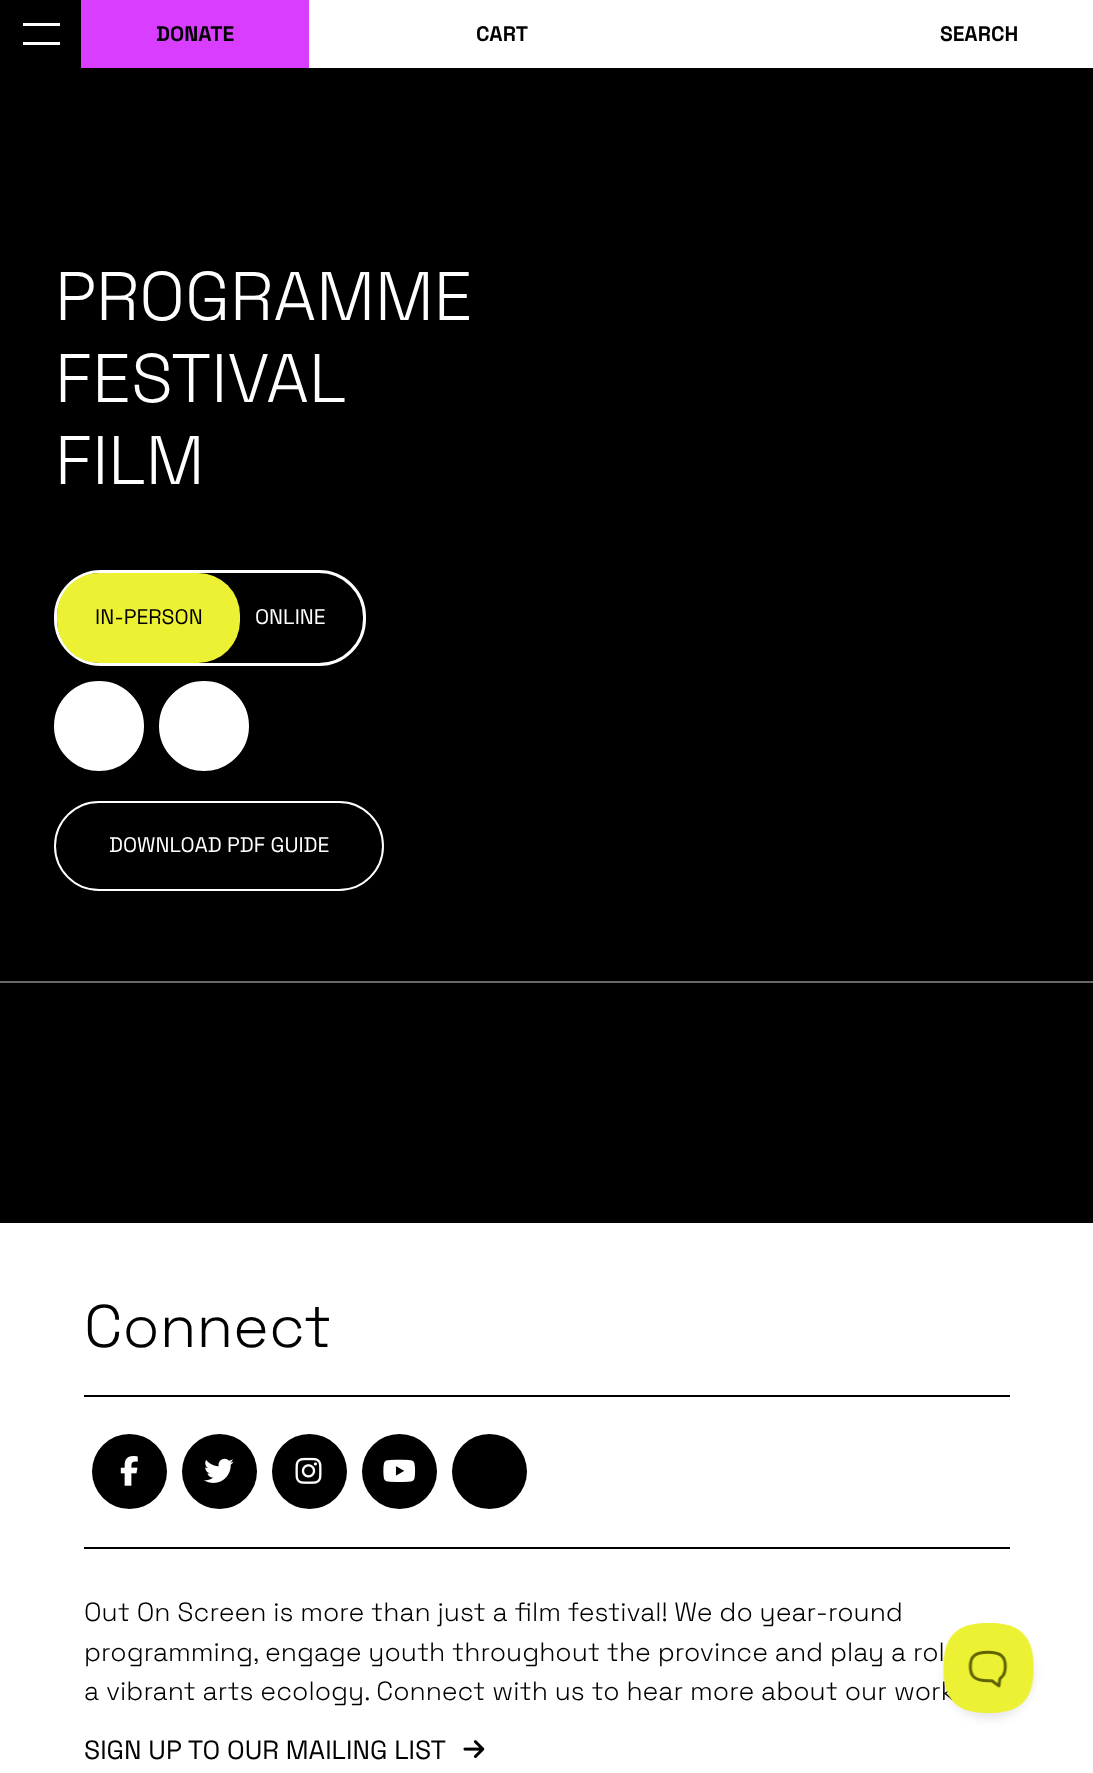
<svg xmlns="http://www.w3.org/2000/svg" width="1093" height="1773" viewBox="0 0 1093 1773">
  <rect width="100%" height="100%" fill="rgb(255,255,255)"/>
  <rect x="0" y="0" width="1093" height="1223" fill="rgb(0,0,0)"/>
  <rect x="23" y="23" width="37" height="3" fill="rgb(255,255,255)"/>
  <rect x="23" y="42" width="37" height="3" fill="rgb(255,255,255)"/>
  <rect x="309" y="0" width="784" height="68" fill="rgb(255,255,255)"/>
  <rect x="81" y="0" width="228" height="68" fill="rgb(217,61,255)"/>
  <g font-family="Space Grotesk" font-size="21" font-weight="bold" fill="rgb(0,0,0)">
    <text x="156" y="41">DONATE</text>
    <text x="476" y="41">CART</text>
    <text x="940" y="41">SEARCH</text>
  </g>
  <g font-family="Space Grotesk" font-size="68.5" font-weight="300" fill="rgb(255,255,255)">
    <text>
      <tspan x="55" y="320">PROGRAMME</tspan>
      <tspan x="55" y="402">FESTIVAL</tspan>
      <tspan x="55" y="484">FILM</tspan>
    </text>
  </g>
  <rect x="55.5" y="571.5" width="309" height="93" rx="45.5" fill="none" stroke="rgb(255,255,255)" stroke-width="3"/>
  <rect x="57" y="573" width="183" height="90" rx="42" fill="rgb(237,241,52)"/>
  <text x="95" y="624" font-family="Space Grotesk" font-size="21.1" fill="rgb(0,0,0)">IN-PERSON</text>
  <text x="255" y="624" font-family="Space Grotesk" font-size="21.1" fill="rgb(255,255,255)">ONLINE</text>
  <circle cx="99" cy="726" r="44" fill="rgb(255,255,255)" stroke="rgb(255,255,255)" stroke-width="2"/>
  <circle cx="204" cy="726" r="44" fill="rgb(255,255,255)" stroke="rgb(255,255,255)" stroke-width="2"/>
  <rect x="55" y="802" width="328" height="88" rx="44" fill="none" stroke="rgb(255,255,255)" stroke-width="2"/>
  <text x="109" y="852" font-family="Space Grotesk" font-size="21.1" fill="rgb(255,255,255)">DOWNLOAD PDF GUIDE</text>
  <rect x="0" y="981" width="1093" height="2" fill="rgb(102,102,102)"/>
  <text x="84" y="1347" font-family="Space Grotesk" font-size="60" font-weight="300" fill="rgb(0,0,0)">Connect</text>
  <rect x="84" y="1395" width="926" height="2" fill="rgb(0,0,0)"/>
  <rect x="84" y="1547" width="926" height="2" fill="rgb(0,0,0)"/>
  <circle cx="129.5" cy="1471.5" r="37.5" fill="rgb(0,0,0)"/>
  <image x="120" y="1456" width="18" height="30" href="pic1.png"/>
  <circle cx="219.5" cy="1471.5" r="37.5" fill="rgb(0,0,0)"/>
  <image x="204" y="1458" width="30" height="25" href="pic2.png"/>
  <circle cx="309.5" cy="1471.5" r="37.5" fill="rgb(0,0,0)"/>
  <image x="295" y="1457" width="27" height="27" href="pic3.png"/>
  <circle cx="399.5" cy="1471.5" r="37.5" fill="rgb(0,0,0)"/>
  <image x="383" y="1459" width="33" height="23" href="pic4.png"/>
  <circle cx="489.5" cy="1471.5" r="37.5" fill="rgb(0,0,0)"/>
  <g font-family="Space Grotesk" font-size="26.4" font-weight="300" fill="rgb(0,0,0)">
    <text>
      <tspan x="84" y="1621">Out On Screen is more than just a film festival! We do year-round</tspan>
      <tspan x="84" y="1661">programming, engage youth throughout the province and play a rol</tspan>
      <tspan x="84" y="1700">a vibrant arts ecology. Connect with us to hear more about our work</tspan>
    </text>
  </g>
  <text x="84" y="1759" font-family="Space Grotesk" font-size="26.4" fill="rgb(0,0,0)">SIGN UP TO OUR MAILING LIST</text>
  <image x="463" y="1740" width="22" height="18" href="pic5.png"/>
  <rect x="944" y="1629" width="90" height="90" rx="45" fill="rgba(0,0,0,0.1)" filter="blur(5px)"/>
  <image x="943" y="1623" width="91" height="90" href="pic6.png"/>
</svg>
